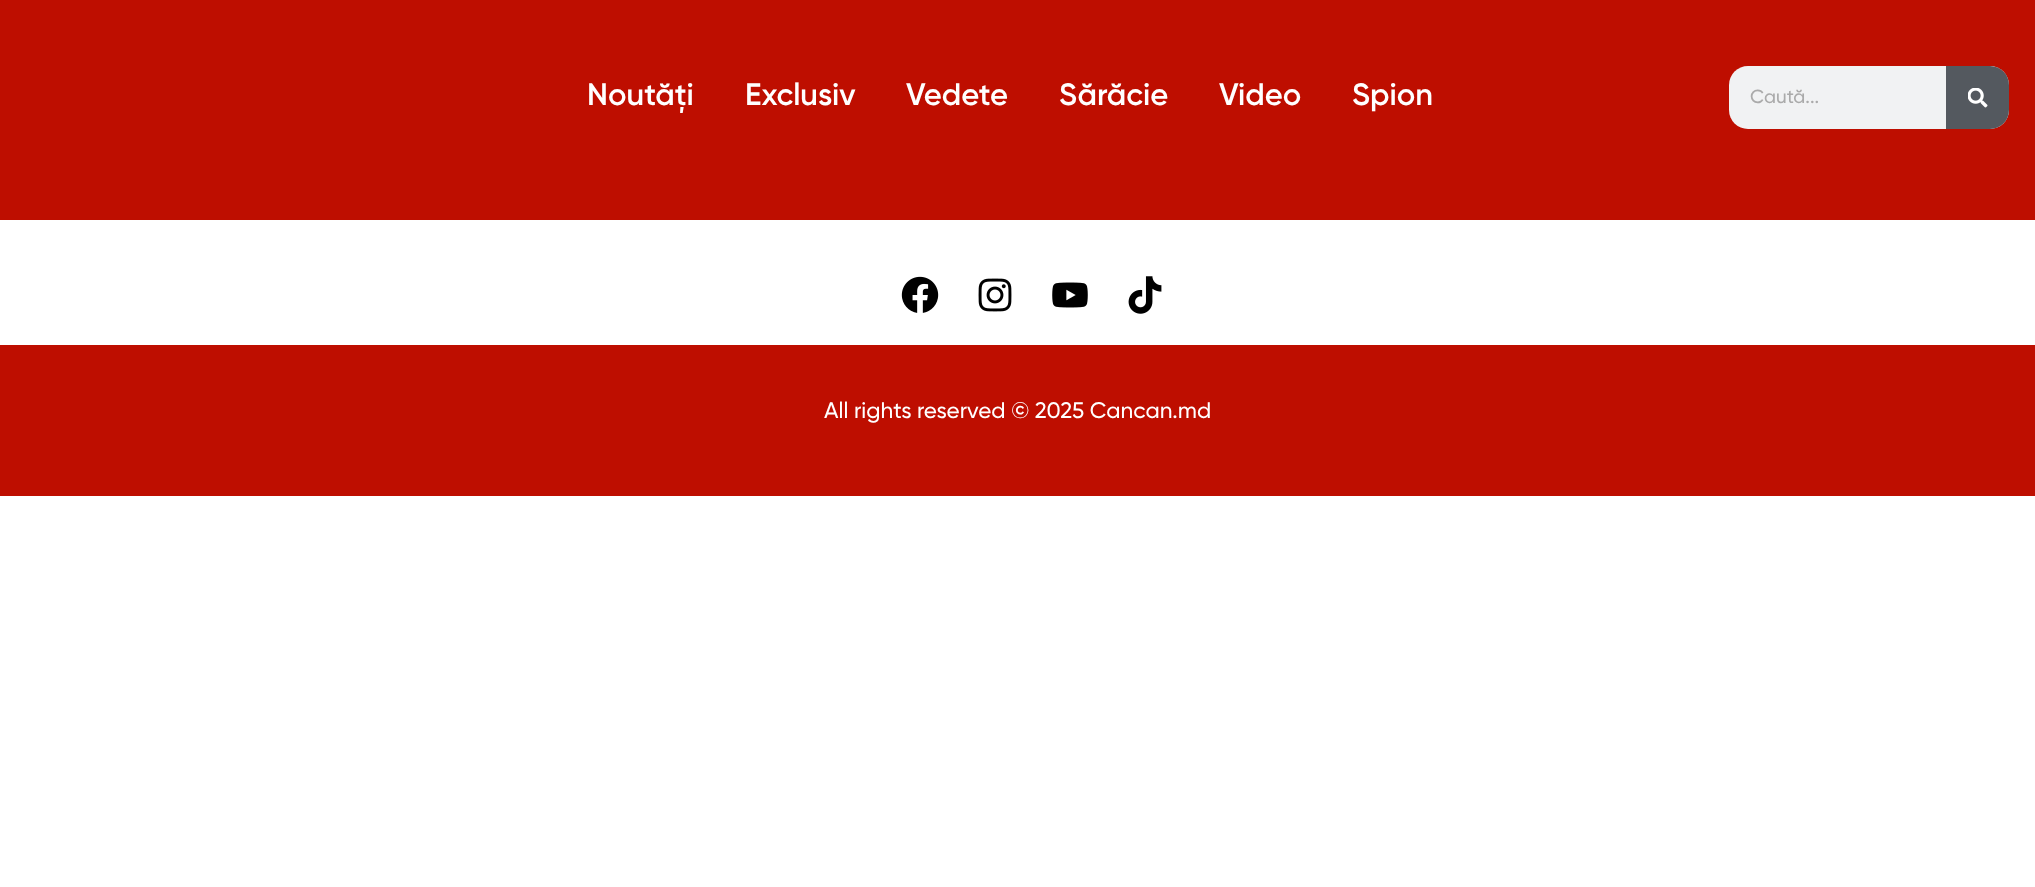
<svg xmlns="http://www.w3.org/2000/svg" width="2035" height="887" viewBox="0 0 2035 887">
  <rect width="100%" height="100%" fill="rgb(255,255,255)"/>
  <rect x="0" y="0" width="2035" height="220" fill="rgb(190,14,0)"/>
  <g font-family="Gilroy" font-size="31" font-weight="600" fill="rgb(255,255,255)">
    <text x="587" y="105">Noutăți</text>
    <text x="745" y="105">Exclusiv</text>
    <text x="906" y="105">Vedete</text>
    <text x="1059" y="105">Sărăcie</text>
    <text x="1219" y="105">Video</text>
    <text x="1352" y="105">Spion</text>
  </g>
  <rect x="1729" y="66" width="280" height="63" rx="19" fill="rgb(241,242,243)"/>
  <text x="1750" y="103" font-family="Gilroy" font-size="19" font-weight="500" fill="rgb(170,170,170)">Caută...</text>
  <path d="M1946 66H1990C2000.5 66 2009 74.5 2009 85V110C2009 120.5 2000.5 129 1990 129H1946Z" fill="rgb(84,89,95)"/>
  <image x="1968" y="88" width="20" height="20" href="pic1.png"/>
  <image x="901" y="276" width="38" height="37" href="pic2.png"/>
  <image x="978" y="278" width="34" height="34" href="pic3.png"/>
  <image x="1052" y="282" width="36" height="26" href="pic4.png"/>
  <image x="1128" y="276" width="34" height="38" href="pic5.png"/>
  <rect x="0" y="345" width="2035" height="151" fill="rgb(190,14,0)"/>
  <text x="824" y="418" font-family="Gilroy" font-size="22.5" font-weight="500" fill="rgb(255,255,255)">All rights reserved © 2025 Cancan.md</text>
</svg>
